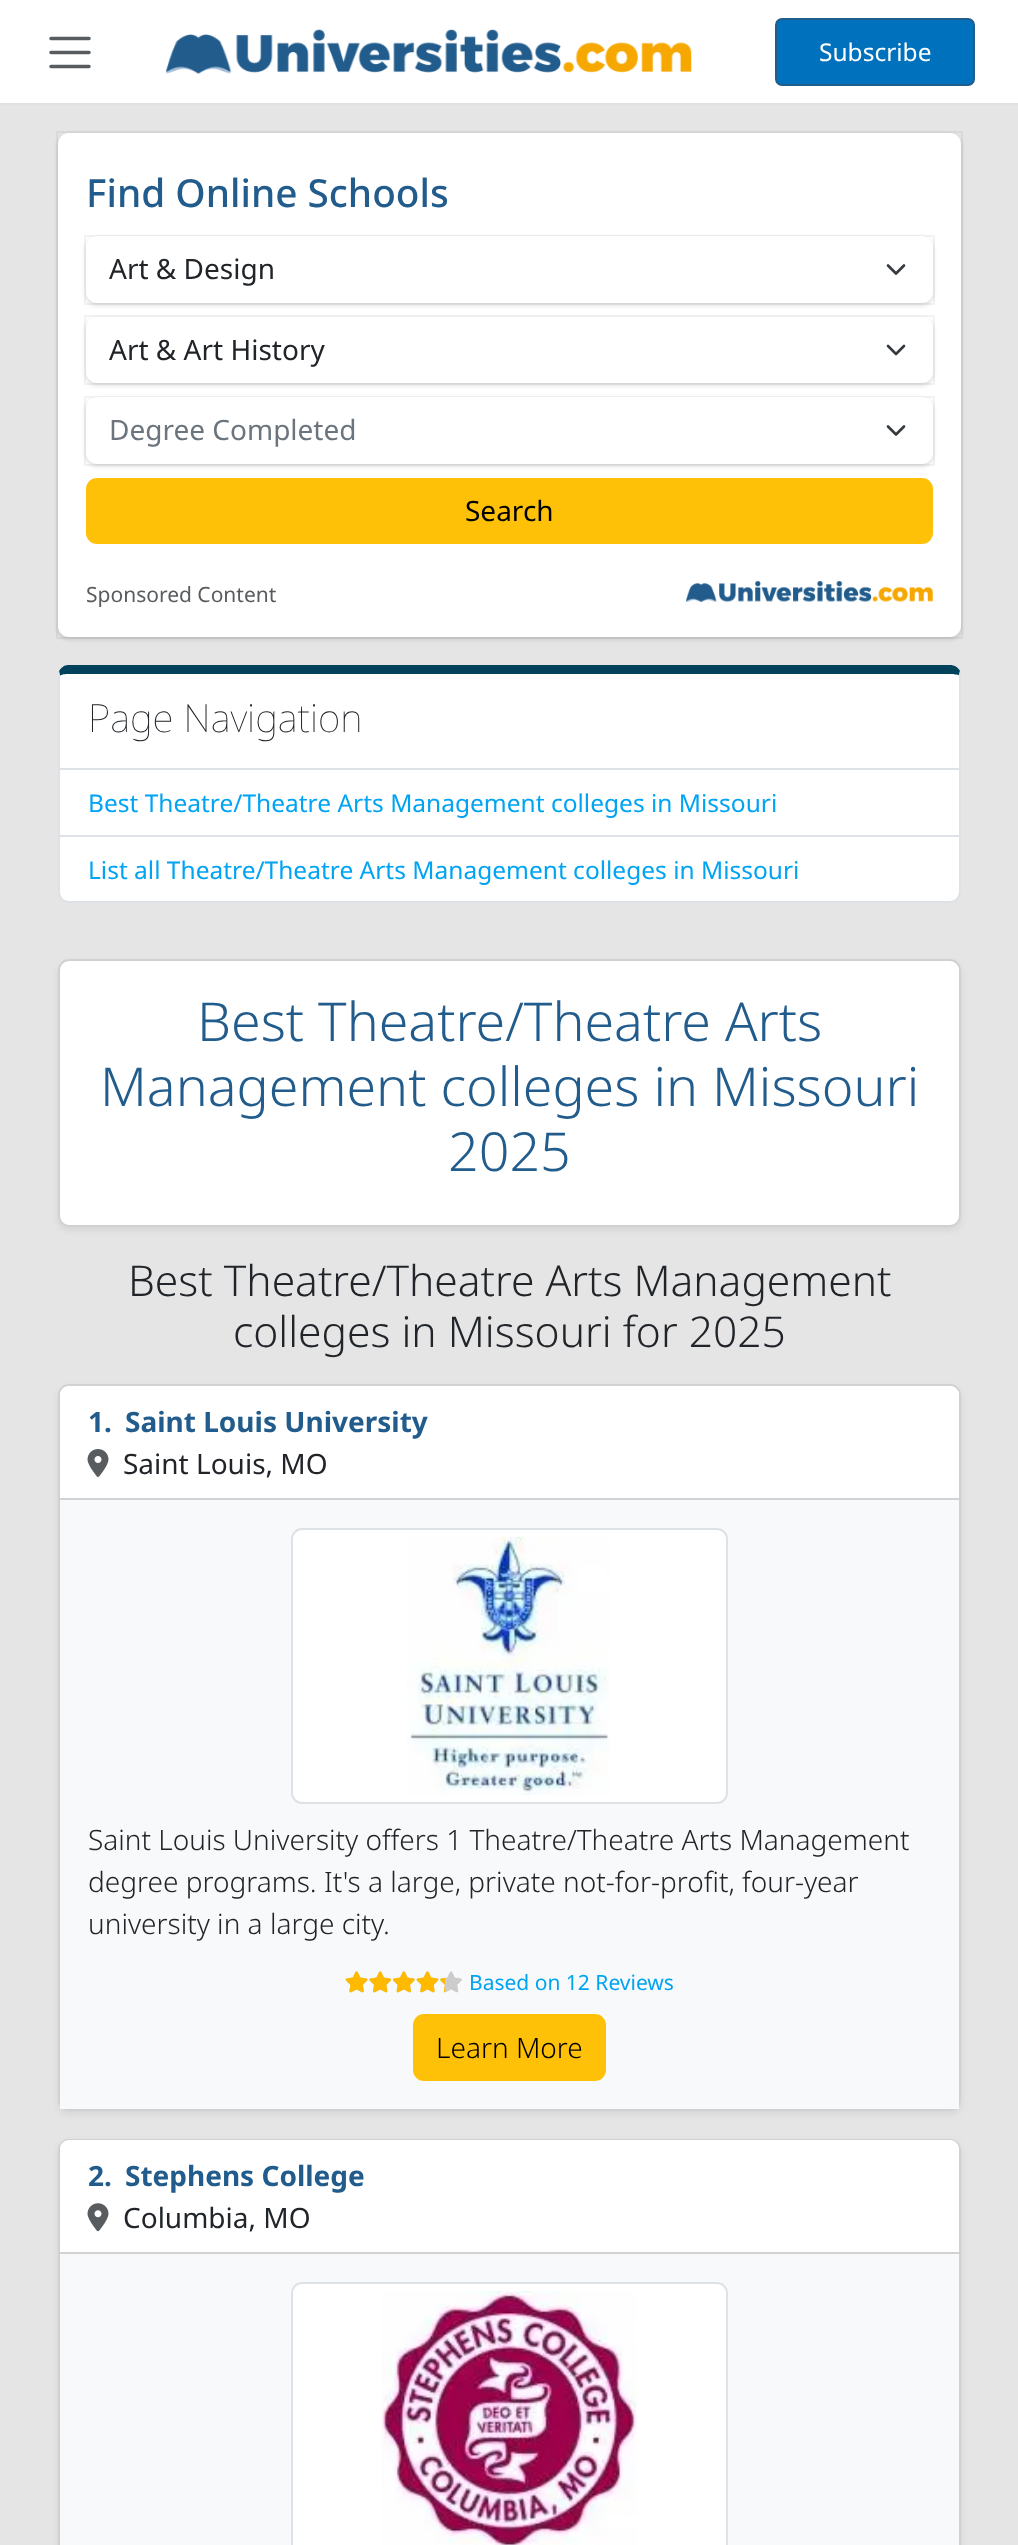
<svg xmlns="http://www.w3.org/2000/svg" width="1018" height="2545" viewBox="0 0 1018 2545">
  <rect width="100%" height="100%" fill="rgb(229,229,229)"/>
  <rect x="0" y="0" width="1018" height="103" fill="rgb(255,255,255)"/>
  <rect x="0" y="103" width="1018" height="2" fill="rgb(222,226,230)"/>
  <path d="M51 38.5H89M51 52.5H89M51 66.5H89" fill="none" stroke="rgb(89,92,95)" stroke-width="3.5" stroke-linecap="round"/>
  <image x="166" y="29" width="526" height="45" href="pic1.png"/>
  <rect x="776" y="19" width="198" height="66" rx="6" fill="rgb(0,113,188)" stroke="rgb(34,92,140)" stroke-width="2"/>
  <text x="819" y="61" font-family="Noto Sans" font-size="24.5" fill="rgb(255,255,255)">Subscribe</text>
  <rect x="58" y="135" width="903" height="504" rx="11" fill="rgba(0,0,0,0.06)" filter="blur(2px)"/>
  <rect x="58" y="135" width="903" height="504" rx="11" fill="rgba(0,0,0,0.1)" filter="blur(2.5px)"/>
  <rect x="57" y="132" width="905" height="506" fill="none" stroke="rgba(17,24,39,0.05)" stroke-width="2"/>
  <rect x="58" y="133" width="903" height="504" rx="11" fill="rgb(255,255,255)"/>
  <text x="86" y="207" font-family="Noto Sans" font-size="38.75" font-weight="500" fill="rgb(34,92,140)">Find Online Schools</text>
  <rect x="86" y="238" width="847" height="67" rx="11" fill="rgba(0,0,0,0.06)" filter="blur(2px)"/>
  <rect x="86" y="238" width="847" height="67" rx="11" fill="rgba(0,0,0,0.1)" filter="blur(2.5px)"/>
  <rect x="85" y="236" width="849" height="68" fill="none" stroke="rgba(17,24,39,0.05)" stroke-width="2"/>
  <rect x="86" y="236" width="847" height="67" rx="11" fill="rgb(255,255,255)"/>
  <path d="M888 265.5L896 273.5L904 265.5" fill="none" stroke="rgb(52,58,64)" stroke-width="2.6" stroke-linecap="round" stroke-linejoin="round"/>
  <text x="109" y="279" font-family="Noto Sans" font-size="28" fill="rgb(33,37,41)">Art &amp; Design</text>
  <rect x="86" y="319" width="847" height="66" rx="11" fill="rgba(0,0,0,0.06)" filter="blur(2px)"/>
  <rect x="86" y="319" width="847" height="66" rx="11" fill="rgba(0,0,0,0.1)" filter="blur(2.5px)"/>
  <rect x="85" y="316" width="849" height="68" fill="none" stroke="rgba(17,24,39,0.05)" stroke-width="2"/>
  <rect x="86" y="317" width="847" height="66" rx="11" fill="rgb(255,255,255)"/>
  <path d="M888 346L896 354L904 346" fill="none" stroke="rgb(52,58,64)" stroke-width="2.6" stroke-linecap="round" stroke-linejoin="round"/>
  <text x="109" y="360" font-family="Noto Sans" font-size="28" fill="rgb(33,37,41)">Art &amp; Art History</text>
  <rect x="86" y="399" width="847" height="67" rx="11" fill="rgba(0,0,0,0.06)" filter="blur(2px)"/>
  <rect x="86" y="399" width="847" height="67" rx="11" fill="rgba(0,0,0,0.1)" filter="blur(2.5px)"/>
  <rect x="85" y="397" width="849" height="68" fill="none" stroke="rgba(17,24,39,0.05)" stroke-width="2"/>
  <rect x="86" y="397" width="847" height="67" rx="11" fill="rgb(255,255,255)"/>
  <path d="M888 426.5L896 434.5L904 426.5" fill="none" stroke="rgb(52,58,64)" stroke-width="2.6" stroke-linecap="round" stroke-linejoin="round"/>
  <text x="109" y="440" font-family="Noto Sans" font-size="28" fill="rgb(108,117,125)">Degree Completed</text>
  <rect x="87" y="479" width="845" height="64" rx="10" fill="rgb(255,193,7)" stroke="rgb(255,193,7)" stroke-width="2"/>
  <text x="465" y="521" font-family="Noto Sans" font-size="28" fill="rgb(0,0,0)">Search</text>
  <text x="86" y="602" font-family="Noto Sans" font-size="21" fill="rgb(89,92,95)">Sponsored Content</text>
  <image x="686" y="581" width="247" height="21" href="pic2.png"/>
  <path d="M68 674H950C955 674 959 675 959 676V768H60V676C60 675 63 674 68 674Z" fill="rgb(255,255,255)"/>
  <path d="M68 665C64 665 61 668 59 671L60 676C60 675 63 674 68 674H950C954 674 958 675 959 675L960 671C958 667 954 665 950 665Z" fill="rgb(0,65,92)"/>
  <path d="M961 674V770L959 768V675L960 671Z" fill="rgb(222,226,230)"/>
  <path d="M961 770L959 768H60L58 770Z" fill="rgb(222,226,230)"/>
  <path d="M59 671L58 676V770L60 768V676Z" fill="rgb(222,226,230)"/>
  <text x="88" y="732" font-family="Noto Sans" font-size="38.75" font-weight="100" fill="rgb(33,37,41)">Page Navigation</text>
  <rect x="60" y="770" width="899" height="65" fill="rgb(255,255,255)"/>
  <rect x="959" y="770" width="2" height="67" fill="rgb(222,226,230)"/>
  <rect x="58" y="835" width="903" height="2" fill="rgb(222,226,230)"/>
  <rect x="58" y="770" width="2" height="67" fill="rgb(222,226,230)"/>
  <text x="88" y="812" font-family="Noto Sans" font-size="24.5" fill="rgb(0,164,243)">Best Theatre/Theatre Arts Management colleges in Missouri</text>
  <path d="M60 837H959V892C959 897 955 901 950 901H69C64 901 60 897 60 892Z" fill="rgb(255,255,255)"/>
  <path d="M58 836H961V892C961 898 956 903 950 903H68C62 903 58 898 58 892ZM60 836H959V892C959 897 955 901 950 901H68C63 901 60 897 60 892Z" fill="rgb(222,226,230)" fill-rule="evenodd"/>
  <text x="88" y="879" font-family="Noto Sans" font-size="24.5" fill="rgb(0,164,243)">List all Theatre/Theatre Arts Management colleges in Missouri</text>
  <rect x="58" y="963" width="903" height="267" rx="11" fill="rgba(0,0,0,0.07)" filter="blur(3.5px)"/>
  <rect x="58" y="959" width="903" height="268" rx="11" fill="rgb(255,255,255)"/>
  <rect x="59" y="960" width="901" height="266" rx="10" fill="none" stroke="rgba(0,0,0,0.18)" stroke-width="2"/>
  <g font-family="Noto Sans" font-size="53.75" font-weight="300" fill="rgb(34,92,140)">
    <text x="197" y="1041">Best Theatre/Theatre Arts</text>
    <text x="100" y="1106">Management colleges in Missouri</text>
    <text x="448" y="1171">2025</text>
  </g>
  <g font-family="Noto Sans" font-size="42.5" font-weight="300" fill="rgb(33,37,41)">
    <text x="128" y="1296">Best Theatre/Theatre Arts Management</text>
    <text x="233" y="1347">colleges in Missouri for 2025</text>
  </g>
  <rect x="58" y="1388" width="903" height="726" rx="11" fill="rgba(0,0,0,0.07)" filter="blur(3.5px)"/>
  <rect x="58" y="1384" width="903" height="727" rx="11" fill="rgb(255,255,255)"/>
  <rect x="59" y="1385" width="901" height="725" rx="10" fill="none" stroke="rgba(0,0,0,0.18)" stroke-width="2"/>
  <path d="M69 1386H950C955 1386 959 1390 959 1395V1500H60V1395C60 1390 64 1386 69 1386Z" fill="rgb(255,255,255)"/>
  <rect x="60" y="1498" width="899" height="2" fill="rgb(210,210,210)"/>
  <g font-family="Noto Sans" font-size="28" font-weight="bold" fill="rgb(34,92,140)">
    <text x="88" y="1432">1.</text>
    <text x="125" y="1432">Saint Louis University</text>
  </g>
  <image x="87" y="1449" width="22" height="28" href="pic3.png"/>
  <text x="123" y="1474" font-family="Noto Sans" font-size="28" fill="rgb(33,37,41)">Saint Louis, MO</text>
  <rect x="60" y="1500" width="899" height="609" fill="rgb(248,249,250)"/>
  <rect x="292" y="1529" width="435" height="274" rx="10" fill="rgb(255,255,255)" stroke="rgb(222,226,230)" stroke-width="2"/>
  <image x="407" y="1536" width="203" height="259" href="pic4.png"/>
  <g font-family="Noto Sans" font-size="28" font-weight="300" fill="rgb(33,37,41)">
    <text>
      <tspan x="88" y="1850">Saint Louis University offers 1 Theatre/Theatre Arts Management</tspan>
      <tspan x="88" y="1892">degree programs. It's a large, private not-for-profit, four-year</tspan>
      <tspan x="88" y="1934">university in a large city.</tspan>
    </text>
  </g>
  <image x="345" y="1971" width="117" height="22" href="pic5.png"/>
  <image x="345" y="1971" width="100" height="22" href="pic6.png"/>
  <text x="469" y="1990" font-family="Noto Sans" font-size="21" fill="rgb(0,164,243)">Based on 12 Reviews</text>
  <rect x="414" y="2015" width="191" height="65" rx="10" fill="rgb(255,193,7)" stroke="rgb(255,193,7)" stroke-width="2"/>
  <text x="436" y="2058" font-family="Noto Sans" font-size="28" font-weight="300" fill="rgb(0,0,0)">Learn More</text>
  <rect x="58" y="2142" width="903" height="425" rx="11" fill="rgba(0,0,0,0.07)" filter="blur(3.5px)"/>
  <rect x="58" y="2139" width="903" height="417" rx="11" fill="rgb(255,255,255)"/>
  <rect x="59" y="2140" width="901" height="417" rx="10" fill="none" stroke="rgba(0,0,0,0.18)" stroke-width="2"/>
  <path d="M69 2140H950C955 2140 959 2144 959 2149V2254H60V2149C60 2144 64 2140 69 2140Z" fill="rgb(255,255,255)"/>
  <rect x="60" y="2252" width="899" height="2" fill="rgb(210,210,210)"/>
  <g font-family="Noto Sans" font-size="28" font-weight="bold" fill="rgb(34,92,140)">
    <text x="88" y="2186">2.</text>
    <text x="125" y="2186">Stephens College</text>
  </g>
  <image x="87" y="2203" width="22" height="29" href="pic7.png"/>
  <text x="123" y="2228" font-family="Noto Sans" font-size="28" fill="rgb(33,37,41)">Columbia, MO</text>
  <rect x="60" y="2254" width="899" height="291" fill="rgb(248,249,250)"/>
  <rect x="292" y="2283" width="435" height="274" rx="10" fill="rgb(255,255,255)" stroke="rgb(222,226,230)" stroke-width="2"/>
  <image x="381" y="2291" width="256" height="254" href="pic8.png"/>
</svg>
